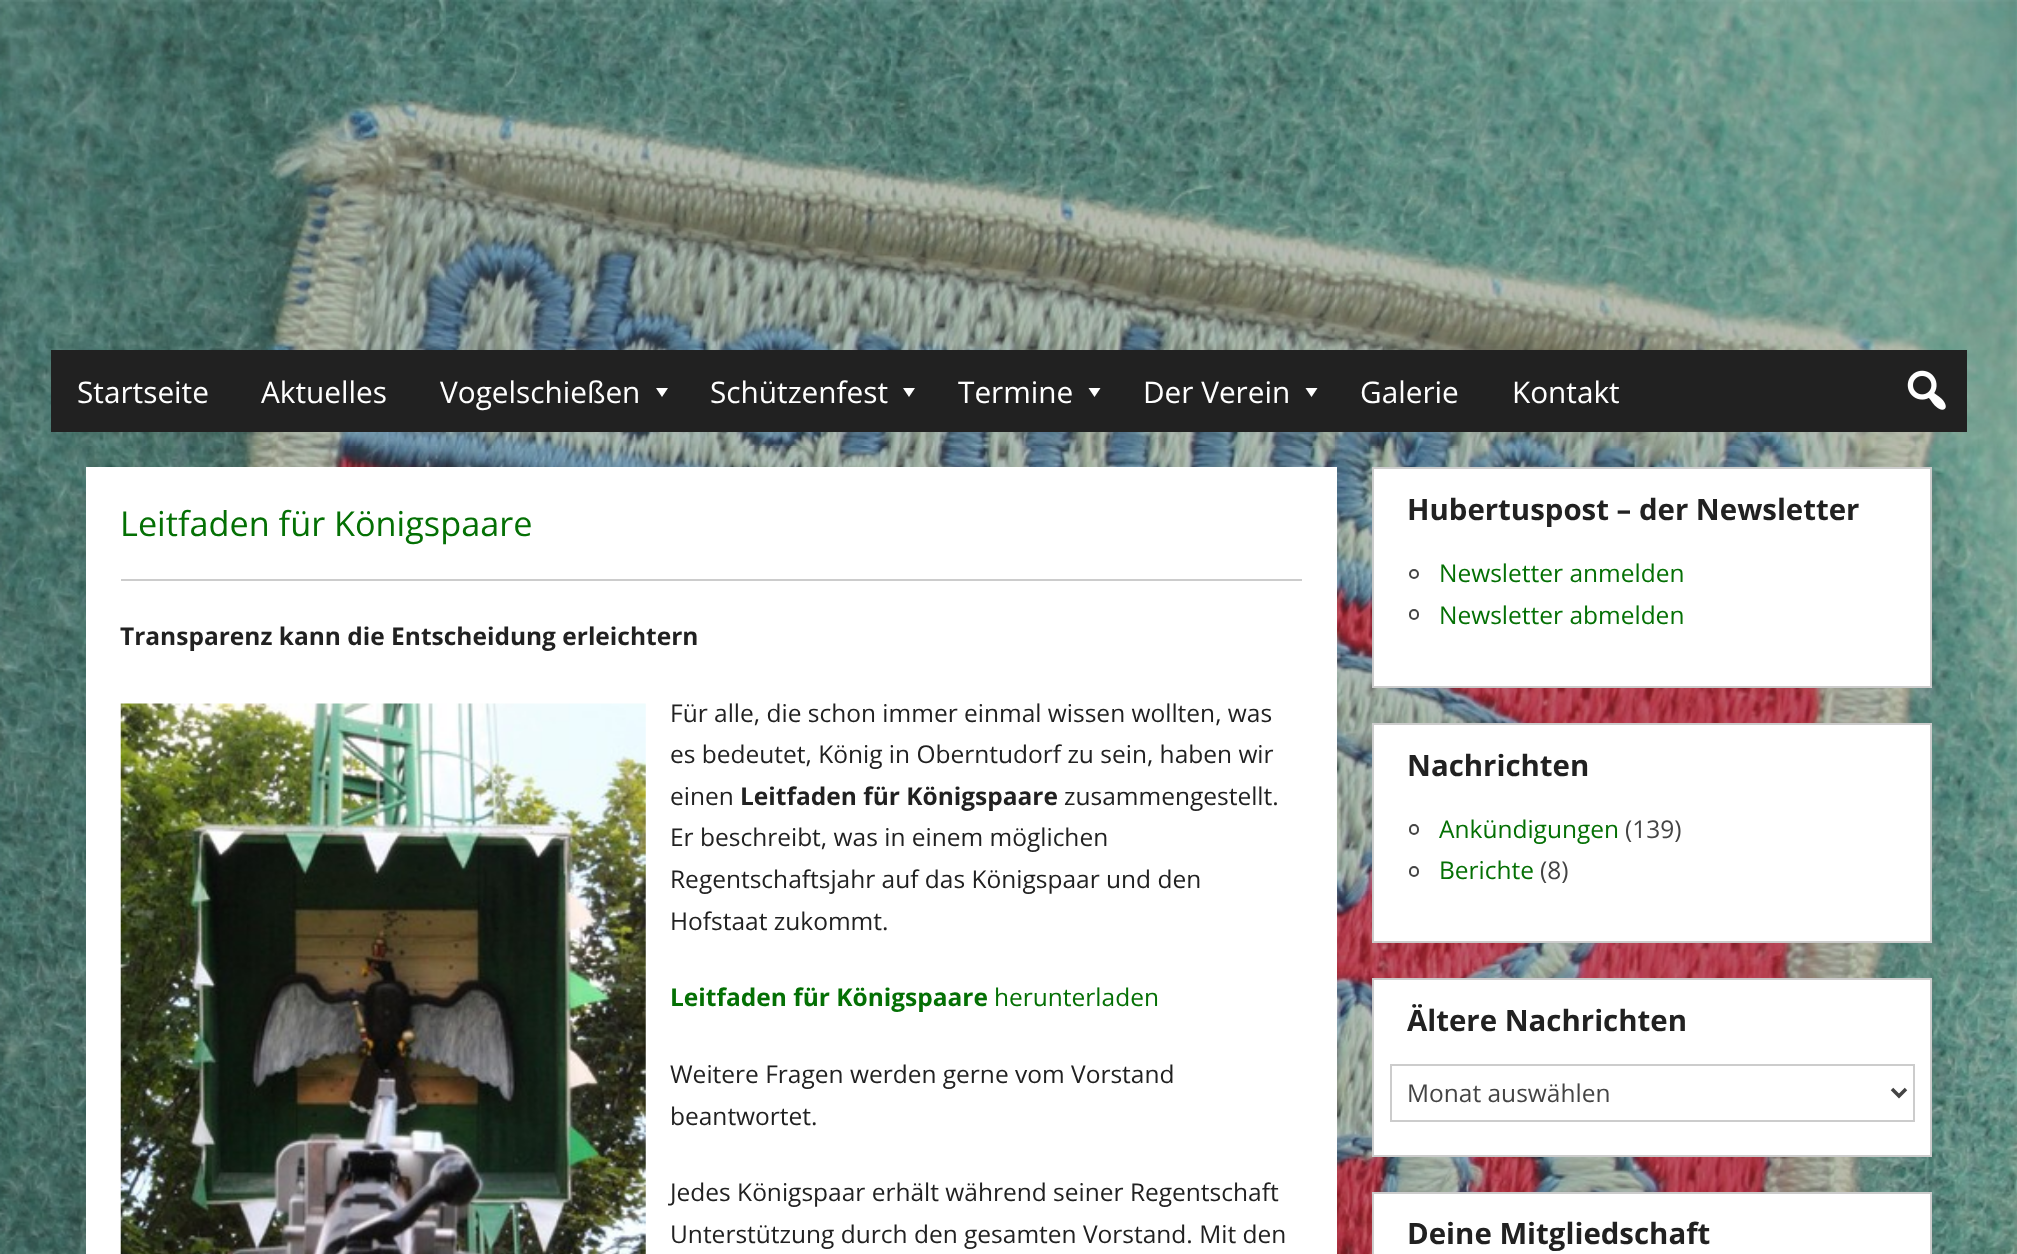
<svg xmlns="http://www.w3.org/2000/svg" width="2017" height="1254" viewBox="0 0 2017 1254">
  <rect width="100%" height="100%" fill="rgb(255,255,255)"/>
  <image x="0" y="0" width="2017" height="1254" href="pic1.png"/>
  <rect x="51" y="350" width="1916" height="82" fill="rgb(33,33,33)"/>
  <g font-family="Open Sans" font-size="29.75" fill="rgb(255,255,255)">
    <text x="77" y="403">Startseite</text>
    <text x="261" y="403">Aktuelles</text>
    <text x="440" y="403">Vogelschießen</text>
  </g>
  <path d="M668 388L662 397L656 388Z" fill="rgb(255,255,255)"/>
  <text x="710" y="403" font-family="Open Sans" font-size="29.75" fill="rgb(255,255,255)">Schützenfest</text>
  <path d="M915 388L909 397L903 388Z" fill="rgb(255,255,255)"/>
  <text x="958" y="403" font-family="Open Sans" font-size="29.75" fill="rgb(255,255,255)">Termine</text>
  <path d="M1100.5 388L1094.5 397L1088.5 388Z" fill="rgb(255,255,255)"/>
  <text x="1143" y="403" font-family="Open Sans" font-size="29.75" fill="rgb(255,255,255)">Der Verein</text>
  <path d="M1317.5 388L1311.5 397L1305.5 388Z" fill="rgb(255,255,255)"/>
  <g font-family="Open Sans" font-size="29.75" fill="rgb(255,255,255)">
    <text x="1360" y="403">Galerie</text>
    <text x="1512" y="403">Kontakt</text>
  </g>
  <image x="1907" y="370" width="39" height="40" href="pic2.png"/>
  <rect x="86" y="467" width="1251" height="787" fill="rgb(255,255,255)"/>
  <rect x="121" y="579" width="1181" height="2" fill="rgb(204,204,204)"/>
  <text x="120" y="536" font-family="Open Sans" font-size="34.25" fill="rgb(4,112,4)">Leitfaden für Königspaare</text>
  <text x="120" y="645" font-family="Open Sans" font-size="24.5" font-weight="bold" fill="rgb(33,33,33)">Transparenz kann die Entscheidung erleichtern</text>
  <image x="120" y="703" width="526" height="551" href="pic3.png"/>
  <g font-family="Open Sans" font-size="24.5" fill="rgb(33,33,33)">
    <text>
      <tspan x="670" y="722">Für alle, die schon immer einmal wissen wollten, was</tspan>
      <tspan x="670" y="763">es bedeutet, König in Oberntudorf zu sein, haben wir</tspan>
      <tspan x="670" y="805">einen</tspan>
    </text>
  </g>
  <text x="740" y="805" font-family="Open Sans" font-size="24.5" font-weight="bold" fill="rgb(33,33,33)">Leitfaden für Königspaare</text>
  <g font-family="Open Sans" font-size="24.5" fill="rgb(33,33,33)">
    <text x="1064" y="805">zusammengestellt.</text>
    <text>
      <tspan x="670" y="846">Er beschreibt, was in einem möglichen</tspan>
      <tspan x="670" y="888">Regentschaftsjahr auf das Königspaar und den</tspan>
      <tspan x="670" y="930">Hofstaat zukommt.</tspan>
    </text>
  </g>
  <text x="670" y="1006" font-family="Open Sans" font-size="24.5" font-weight="bold" fill="rgb(4,112,4)">Leitfaden für Königspaare</text>
  <text x="994" y="1006" font-family="Open Sans" font-size="24.5" fill="rgb(4,112,4)">herunterladen</text>
  <g font-family="Open Sans" font-size="24.5" fill="rgb(33,33,33)">
    <text>
      <tspan x="670" y="1083">Weitere Fragen werden gerne vom Vorstand</tspan>
      <tspan x="670" y="1125">beantwortet.</tspan>
    </text>
    <text>
      <tspan x="670" y="1201">Jedes Königspaar erhält während seiner Regentschaft</tspan>
      <tspan x="670" y="1243">Unterstützung durch den gesamten Vorstand. Mit den</tspan>
    </text>
  </g>
  <rect x="1373" y="468" width="558" height="219" fill="rgb(255,255,255)" stroke="rgb(204,204,204)" stroke-width="2"/>
  <text x="1407" y="520" font-family="Open Sans" font-size="29.4" font-weight="bold" fill="rgb(33,33,33)">Hubertuspost – der Newsletter</text>
  <circle cx="1414" cy="574" r="4" fill="none" stroke="rgb(68,68,68)" stroke-width="2"/>
  <text x="1439" y="582" font-family="Open Sans" font-size="24.5" fill="rgb(4,112,4)">Newsletter anmelden</text>
  <rect x="1410" y="610" width="8" height="9" rx="4" fill="none" stroke="rgb(68,68,68)" stroke-width="2"/>
  <text x="1439" y="624" font-family="Open Sans" font-size="24.5" fill="rgb(4,112,4)">Newsletter abmelden</text>
  <rect x="1373" y="724" width="558" height="218" fill="rgb(255,255,255)" stroke="rgb(204,204,204)" stroke-width="2"/>
  <text x="1407" y="776" font-family="Open Sans" font-size="29.4" font-weight="bold" fill="rgb(33,33,33)">Nachrichten</text>
  <rect x="1410" y="825" width="8" height="9" rx="4" fill="none" stroke="rgb(68,68,68)" stroke-width="2"/>
  <text x="1439" y="838" font-family="Open Sans" font-size="24.5" fill="rgb(4,112,4)">Ankündigungen</text>
  <text x="1625" y="838" font-family="Open Sans" font-size="24.5" fill="rgb(68,68,68)">(139)</text>
  <rect x="1410" y="867" width="8" height="9" rx="4" fill="none" stroke="rgb(68,68,68)" stroke-width="2"/>
  <text x="1439" y="879" font-family="Open Sans" font-size="24.5" fill="rgb(4,112,4)">Berichte</text>
  <text x="1540" y="879" font-family="Open Sans" font-size="24.5" fill="rgb(68,68,68)">(8)</text>
  <rect x="1373" y="979" width="558" height="177" fill="rgb(255,255,255)" stroke="rgb(204,204,204)" stroke-width="2"/>
  <text x="1407" y="1031" font-family="Open Sans" font-size="29.4" font-weight="bold" fill="rgb(33,33,33)">Ältere Nachrichten</text>
  <rect x="1391" y="1065" width="523" height="56" fill="none" stroke="rgb(204,204,204)" stroke-width="2"/>
  <path d="M1892 1089L1899 1096L1906 1089" fill="none" stroke="rgb(68,68,68)" stroke-width="3.5"/>
  <text x="1407" y="1102" font-family="Open Sans" font-size="24.5" fill="rgb(68,68,68)">Monat auswählen</text>
  <rect x="1373" y="1193" width="558" height="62" fill="rgb(255,255,255)" stroke="rgb(204,204,204)" stroke-width="2"/>
  <text x="1407" y="1244" font-family="Open Sans" font-size="29.4" font-weight="bold" fill="rgb(33,33,33)">Deine Mitgliedschaft</text>
</svg>
